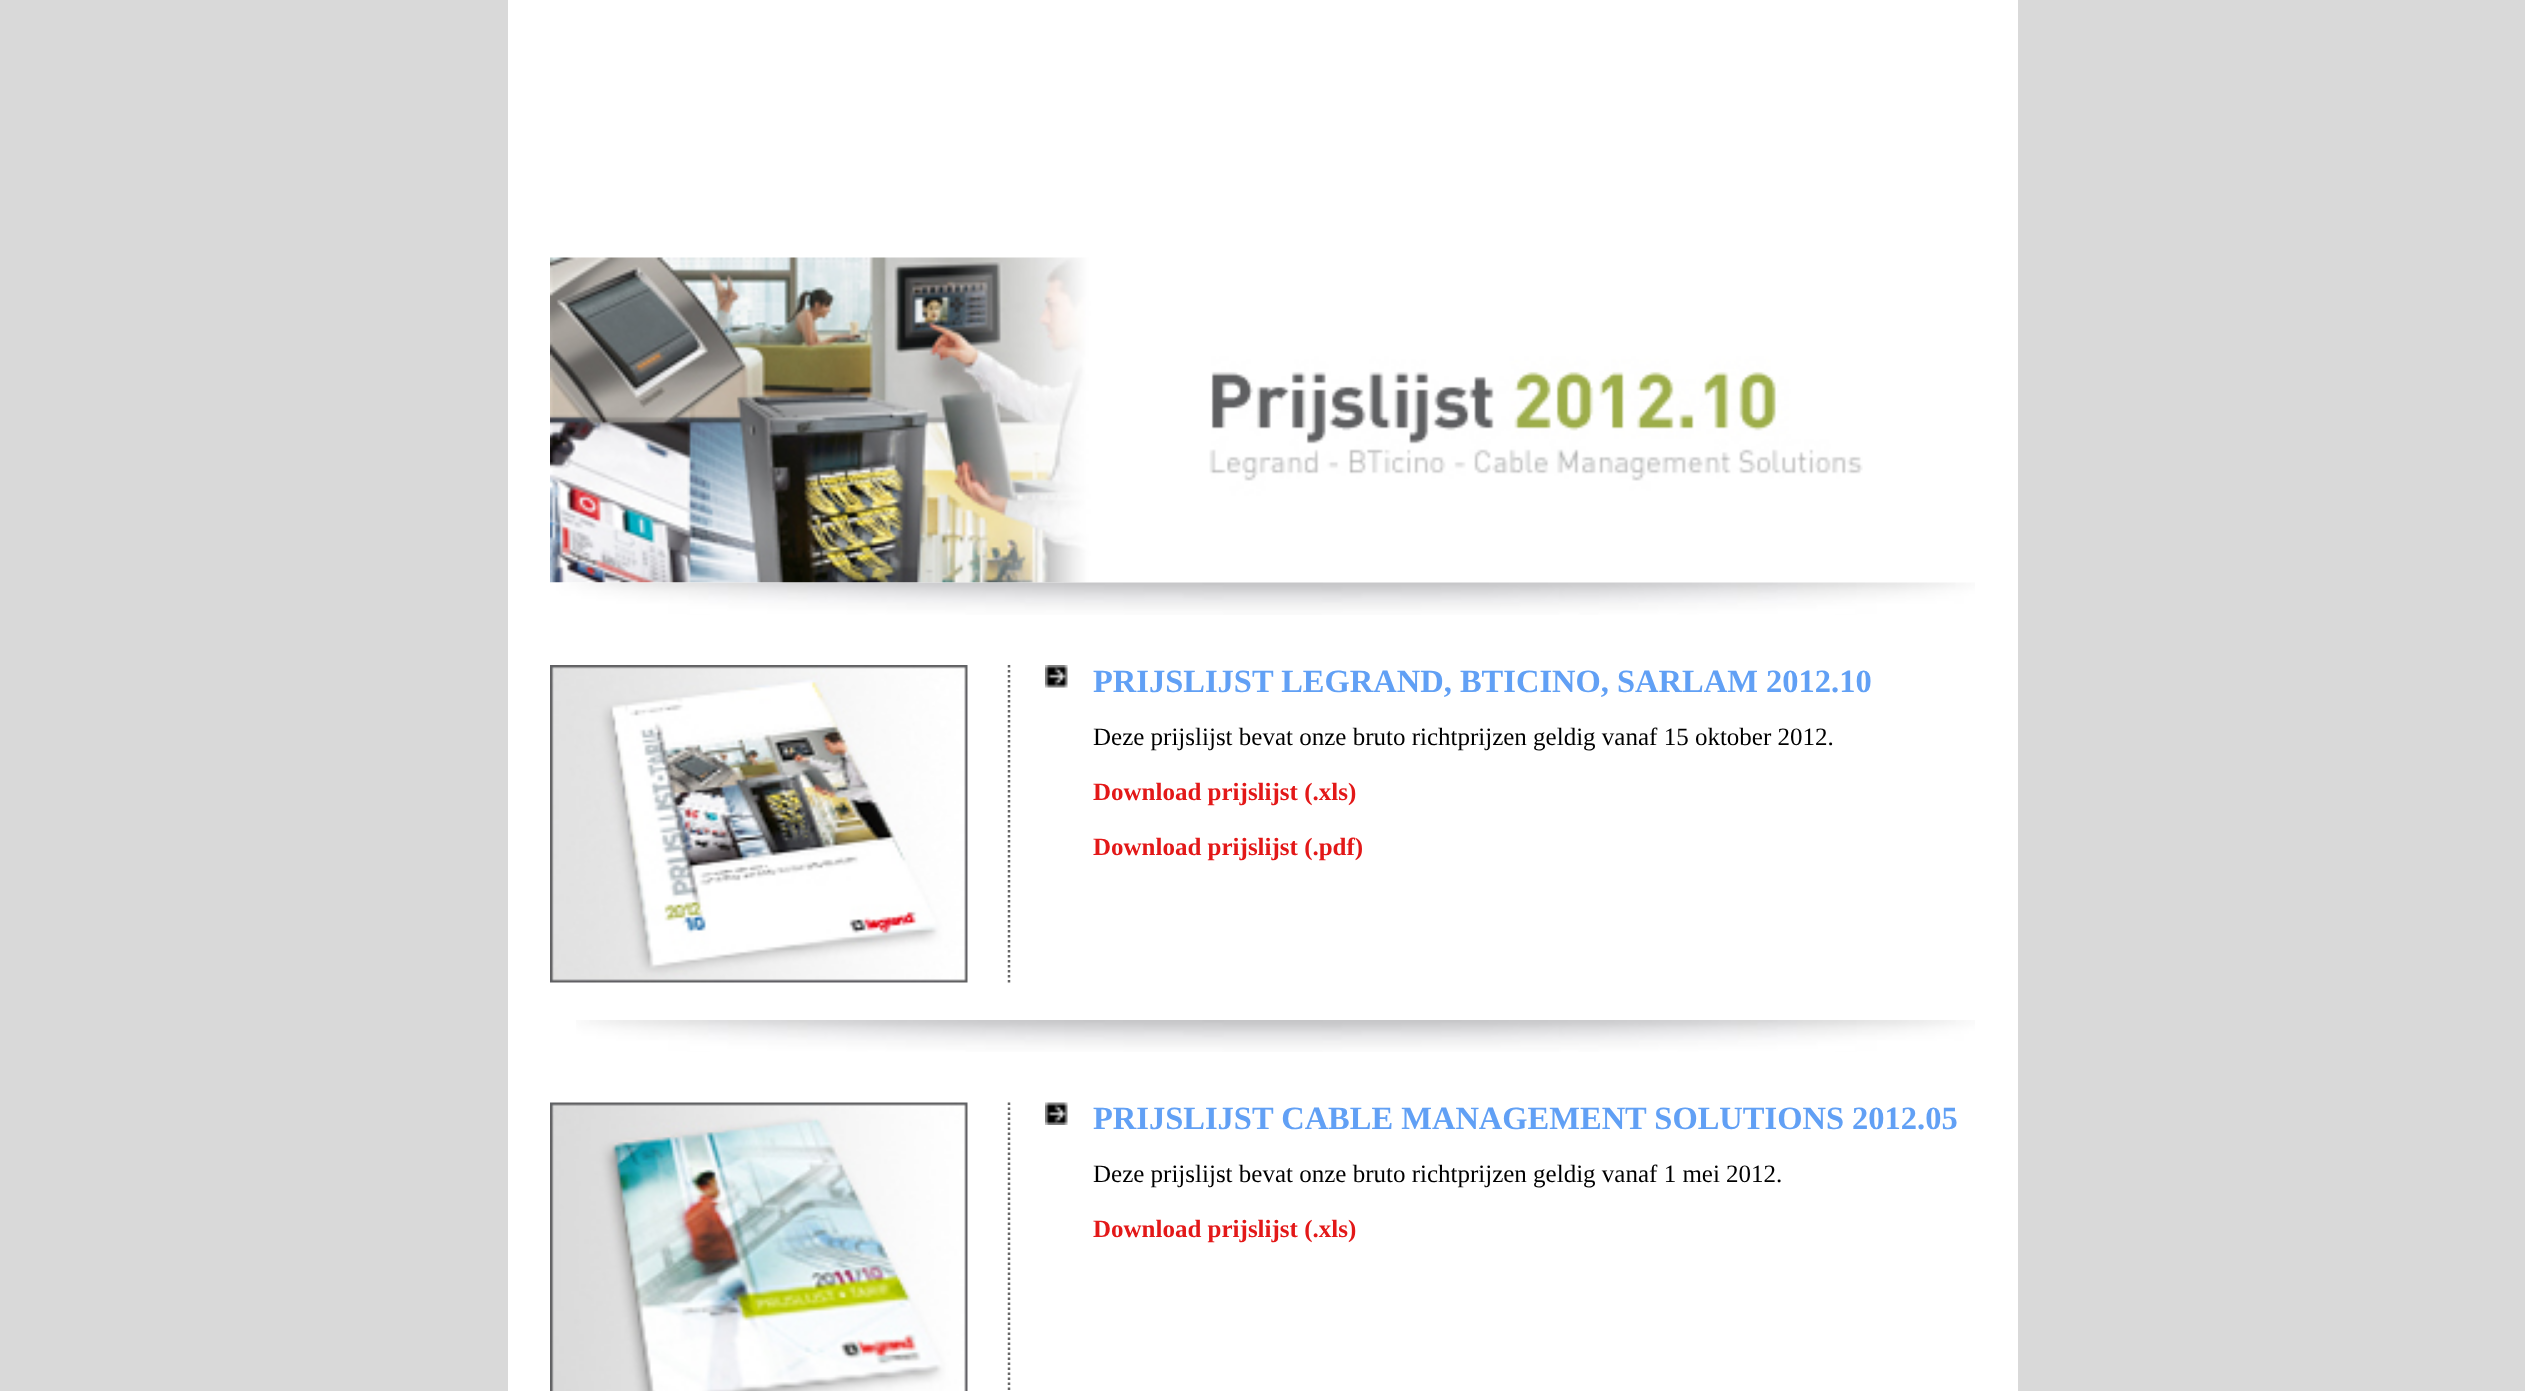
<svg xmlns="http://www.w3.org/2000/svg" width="2525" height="1391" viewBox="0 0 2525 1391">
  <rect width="100%" height="100%" fill="rgb(217,217,217)"/>
  <rect x="508" y="0" width="1510" height="1391" fill="rgb(255,255,255)"/>
  <image x="550" y="257" width="1313" height="326" href="pic1.png"/>
  <image x="550" y="582" width="1425" height="33" href="pic2.png"/>
  <path d="M1009 665V982.5" fill="none" stroke="rgb(102,102,102)" stroke-width="2.5" stroke-dasharray="2.5 2.5"/>
  <image x="550" y="665" width="418" height="318" href="pic3.png"/>
  <image x="1045" y="665" width="23" height="23" href="pic4.png"/>
  <text x="1093" y="692" font-family="Liberation Serif" font-size="32.5" font-weight="bold" fill="rgb(97,160,245)">PRIJSLIJST LEGRAND, BTICINO, SARLAM 2012.10</text>
  <text x="1093" y="745" font-family="Liberation Serif" font-size="25" fill="rgb(0,0,0)">Deze prijslijst bevat onze bruto richtprijzen geldig vanaf 15 oktober 2012.</text>
  <g font-family="Liberation Serif" font-size="25" font-weight="bold" fill="rgb(227,24,24)">
    <text x="1093" y="800">Download prijslijst (.xls)</text>
    <text x="1093" y="855">Download prijslijst (.pdf)</text>
  </g>
  <image x="576" y="1020" width="1399" height="32" href="pic5.png"/>
  <path d="M1009 1102.5V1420" fill="none" stroke="rgb(102,102,102)" stroke-width="2.5" stroke-dasharray="2.5 2.5"/>
  <image x="550" y="1102" width="418" height="289" href="pic6.png"/>
  <image x="1045" y="1102" width="23" height="23" href="pic7.png"/>
  <text x="1093" y="1129" font-family="Liberation Serif" font-size="32.5" font-weight="bold" fill="rgb(97,160,245)">PRIJSLIJST CABLE MANAGEMENT SOLUTIONS 2012.05</text>
  <text x="1093" y="1182" font-family="Liberation Serif" font-size="25" fill="rgb(0,0,0)">Deze prijslijst bevat onze bruto richtprijzen geldig vanaf 1 mei 2012.</text>
  <text x="1093" y="1237" font-family="Liberation Serif" font-size="25" font-weight="bold" fill="rgb(227,24,24)">Download prijslijst (.xls)</text>
</svg>
